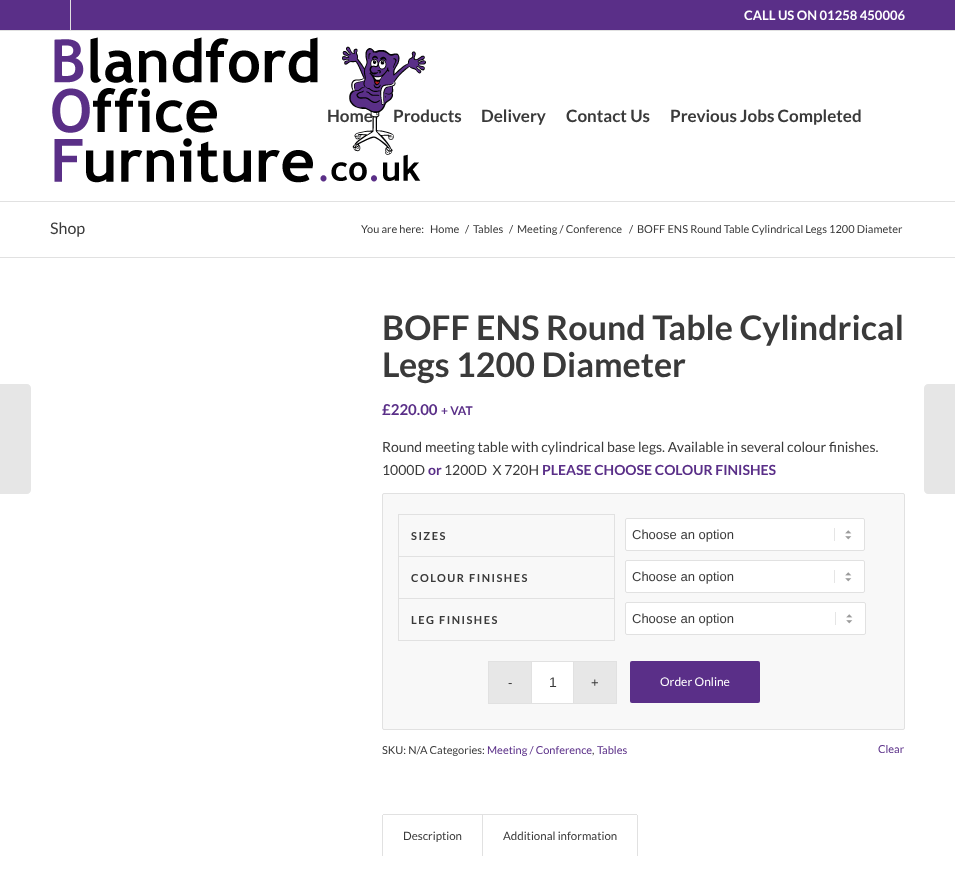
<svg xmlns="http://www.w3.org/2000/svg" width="955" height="878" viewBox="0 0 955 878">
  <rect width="100%" height="100%" fill="rgb(255,255,255)"/>
  <rect x="0" y="0" width="955" height="30" fill="rgb(90,47,136)"/>
  <rect x="0" y="30" width="955" height="1" fill="rgb(225,225,225)"/>
  <rect x="70" y="0" width="1" height="30" fill="rgb(225,225,225)"/>
  <text x="744" y="20" font-family="Lato" font-size="13" font-weight="bold" fill="rgb(255,255,255)">CALL US ON 01258 450006</text>
  <rect x="0" y="201" width="955" height="1" fill="rgb(225,225,225)"/>
  <image x="52" y="37" width="374" height="146" href="pic1.png"/>
  <g font-family="Lato" font-size="17" font-weight="bold" fill="rgb(58,58,58)">
    <text x="327" y="122">Home</text>
    <text x="393" y="122">Products</text>
    <text x="481" y="122">Delivery</text>
    <text x="566" y="122">Contact Us</text>
    <text x="670" y="122">Previous Jobs Completed</text>
  </g>
  <path d="M0 384H27C29 384 31 386 31 388V490C31 492 29 494 27 494H0Z" fill="rgb(230,230,230)"/>
  <text x="50" y="234" font-family="Lato" font-size="16" fill="rgb(58,58,58)">Shop</text>
  <g font-family="Lato" font-size="11" fill="rgb(58,58,58)">
    <text x="361" y="233">You are here:</text>
    <text x="430" y="233">Home</text>
    <text x="465" y="233">/</text>
    <text x="473" y="233">Tables</text>
    <text x="509" y="233">/</text>
    <text x="517" y="233">Meeting / Conference</text>
    <text x="629" y="233">/</text>
    <text x="637" y="233">BOFF ENS Round Table Cylindrical Legs 1200 Diameter</text>
  </g>
  <rect x="0" y="257" width="955" height="1" fill="rgb(225,225,225)"/>
  <g font-family="Lato" font-size="34" font-weight="bold" fill="rgb(58,58,58)">
    <text>
      <tspan x="382" y="340">BOFF ENS Round Table Cylindrical</tspan>
      <tspan x="382" y="377">Legs 1200 Diameter</tspan>
    </text>
  </g>
  <text x="382" y="415" font-family="Lato" font-size="15" font-weight="bold" fill="rgb(90,47,136)">£220.00</text>
  <text x="441" y="415" font-family="Lato" font-size="12" font-weight="bold" fill="rgb(90,47,136)">+ VAT</text>
  <g font-family="Lato" font-size="14" fill="rgb(58,58,58)">
    <text>
      <tspan x="382" y="452">Round meeting table with cylindrical base legs. Available in several colour finishes.</tspan>
      <tspan x="382" y="475">1000D</tspan>
    </text>
  </g>
  <text x="428" y="475" font-family="Lato" font-size="14" font-weight="bold" fill="rgb(90,47,136)">or</text>
  <text x="444" y="475" font-family="Lato" font-size="14" fill="rgb(58,58,58)" xml:space="preserve">1200D  X 720H</text>
  <text x="542" y="475" font-family="Lato" font-size="14" font-weight="bold" fill="rgb(90,47,136)">PLEASE CHOOSE COLOUR FINISHES</text>
  <rect x="382.5" y="493.5" width="522" height="236" rx="1.5" fill="rgb(248,248,248)" stroke="rgb(225,225,225)"/>
  <rect x="398" y="514" width="217" height="1" fill="rgb(225,225,225)"/>
  <rect x="614" y="556" width="1" height="85" fill="rgb(225,225,225)"/>
  <rect x="614" y="514" width="1" height="43" fill="rgb(225,225,225)"/>
  <rect x="398" y="640" width="217" height="1" fill="rgb(225,225,225)"/>
  <rect x="398" y="598" width="1" height="43" fill="rgb(225,225,225)"/>
  <rect x="398" y="598" width="217" height="1" fill="rgb(225,225,225)"/>
  <rect x="398" y="556" width="1" height="43" fill="rgb(225,225,225)"/>
  <rect x="398" y="556" width="217" height="1" fill="rgb(225,225,225)"/>
  <rect x="398" y="514" width="1" height="43" fill="rgb(225,225,225)"/>
  <text x="411" y="540" font-family="Lato" font-size="11" font-weight="bold" letter-spacing="1.5" fill="rgb(58,58,58)">SIZES</text>
  <rect x="625" y="518" width="240" height="33" rx="2" fill="rgb(255,255,255)"/>
  <image x="834" y="528" width="18" height="13" href="pic2.png"/>
  <rect x="625.5" y="518.5" width="239" height="32" rx="1.5" fill="none" stroke="rgb(225,225,225)"/>
  <text x="632" y="539" font-family="Liberation Sans" font-size="13" fill="rgb(58,58,58)">Choose an option</text>
  <text x="411" y="582" font-family="Lato" font-size="11" font-weight="bold" letter-spacing="1.5" fill="rgb(58,58,58)">COLOUR FINISHES</text>
  <rect x="625" y="560" width="240" height="33" rx="2" fill="rgb(255,255,255)"/>
  <image x="834" y="570" width="18" height="13" href="pic2.png"/>
  <rect x="625.5" y="560.5" width="239" height="32" rx="1.5" fill="none" stroke="rgb(225,225,225)"/>
  <text x="632" y="581" font-family="Liberation Sans" font-size="13" fill="rgb(58,58,58)">Choose an option</text>
  <text x="411" y="624" font-family="Lato" font-size="11" font-weight="bold" letter-spacing="1.5" fill="rgb(58,58,58)">LEG FINISHES</text>
  <rect x="625" y="602" width="241" height="33" rx="2" fill="rgb(255,255,255)"/>
  <image x="835" y="612" width="18" height="13" href="pic2.png"/>
  <rect x="625.5" y="602.5" width="240" height="32" rx="1.5" fill="none" stroke="rgb(225,225,225)"/>
  <text x="632" y="623" font-family="Liberation Sans" font-size="13" fill="rgb(58,58,58)">Choose an option</text>
  <text x="878" y="753" font-family="Lato" font-size="11" fill="rgb(90,47,136)">Clear</text>
  <rect x="489" y="662" width="42" height="41" fill="rgb(231,231,231)"/>
  <text x="508" y="687" font-family="Liberation Sans" font-size="13" fill="rgb(58,58,58)">-</text>
  <rect x="488" y="661" width="43" height="1" fill="rgb(225,225,225)"/>
  <rect x="488" y="703" width="43" height="1" fill="rgb(225,225,225)"/>
  <rect x="488" y="661" width="1" height="43" fill="rgb(225,225,225)"/>
  <rect x="531.5" y="661.5" width="42" height="42" fill="rgb(255,255,255)" stroke="rgb(225,225,225)"/>
  <text x="549" y="687" font-family="Liberation Sans" font-size="14" fill="rgb(58,58,58)">1</text>
  <rect x="574" y="662" width="42" height="41" fill="rgb(231,231,231)"/>
  <text x="591" y="687" font-family="Liberation Sans" font-size="13" fill="rgb(58,58,58)">+</text>
  <rect x="574" y="661" width="43" height="1" fill="rgb(225,225,225)"/>
  <rect x="616" y="661" width="1" height="43" fill="rgb(225,225,225)"/>
  <rect x="574" y="703" width="43" height="1" fill="rgb(225,225,225)"/>
  <rect x="630" y="661" width="130" height="42" rx="2" fill="rgb(90,47,136)"/>
  <text x="660" y="686" font-family="Lato" font-size="12" fill="rgb(255,255,255)">Order Online</text>
  <text x="382" y="754" font-family="Lato" font-size="11" fill="rgb(58,58,58)">SKU: N/A Categories:</text>
  <text x="487" y="754" font-family="Lato" font-size="11" fill="rgb(90,47,136)">Meeting / Conference</text>
  <text x="592" y="754" font-family="Lato" font-size="11" fill="rgb(58,58,58)">,</text>
  <text x="597" y="754" font-family="Lato" font-size="11" fill="rgb(90,47,136)">Tables</text>
  <rect x="383" y="814" width="100" height="1" fill="rgb(225,225,225)"/>
  <rect x="482" y="814" width="1" height="42" fill="rgb(225,225,225)"/>
  <rect x="382" y="815" width="1" height="41" fill="rgb(225,225,225)"/>
  <text x="403" y="840" font-family="Lato" font-size="11.5" fill="rgb(58,58,58)">Description</text>
  <rect x="482" y="814" width="155" height="1" fill="rgb(225,225,225)"/>
  <rect x="637" y="815" width="1" height="41" fill="rgb(225,225,225)"/>
  <text x="503" y="840" font-family="Lato" font-size="11.5" fill="rgb(58,58,58)">Additional information</text>
  <path d="M928 384H955V494H928C926 494 924 492 924 490V388C924 386 926 384 928 384Z" fill="rgb(230,230,230)"/>
</svg>
